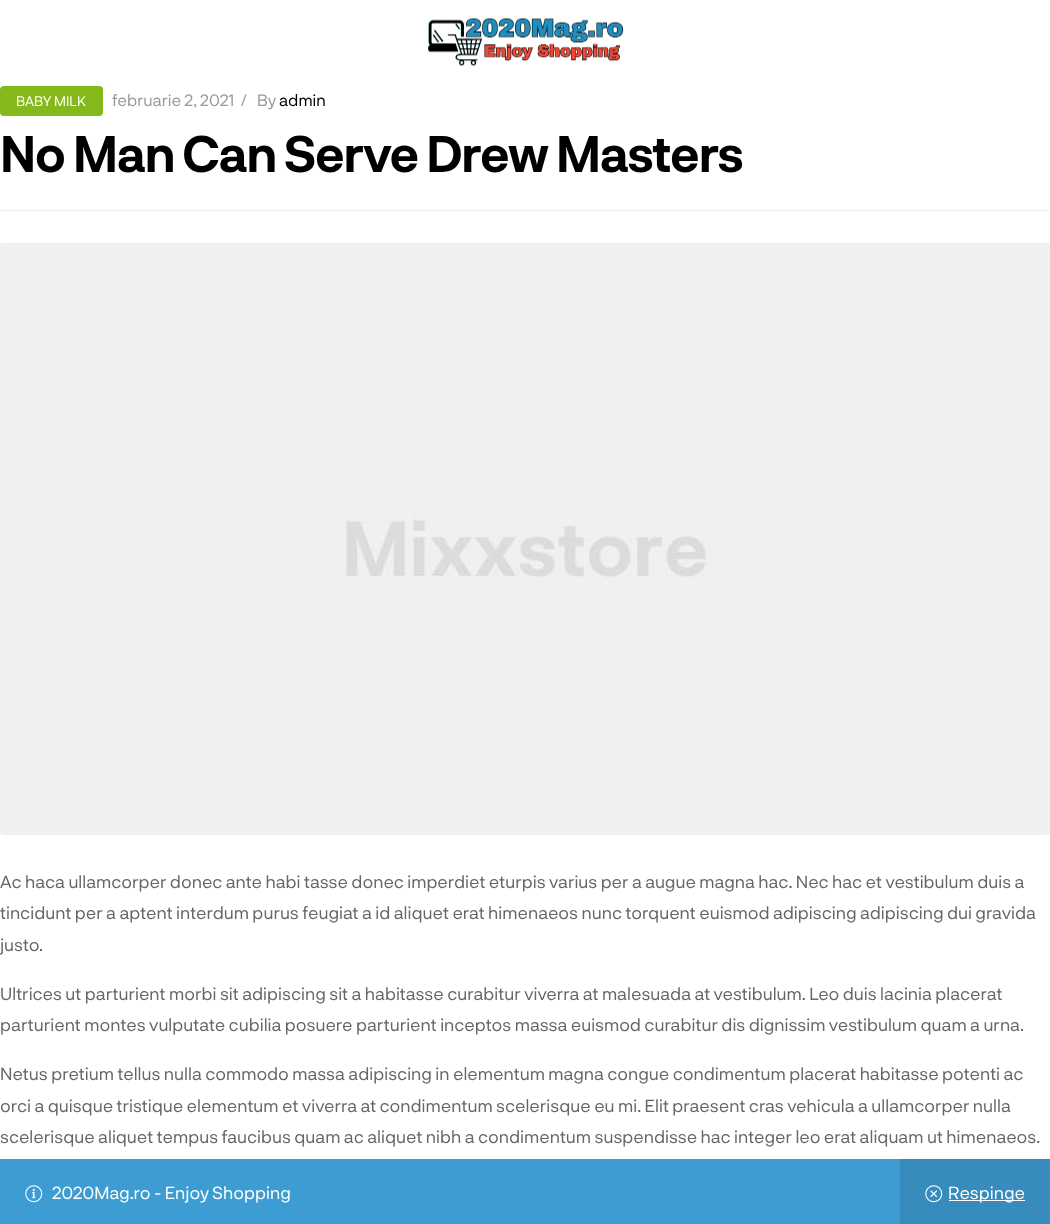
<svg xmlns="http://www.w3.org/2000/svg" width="1050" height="1224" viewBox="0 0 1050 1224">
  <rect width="100%" height="100%" fill="rgb(255,255,255)"/>
  <image x="427" y="17" width="197" height="50" href="pic1.png"/>
  <rect x="0" y="210" width="1050" height="1" fill="rgb(238,238,238)"/>
  <rect x="0" y="86" width="103" height="30" rx="4" fill="rgb(133,184,26)"/>
  <text x="16" y="106" font-family="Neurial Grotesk" font-size="13.75" fill="rgb(255,255,255)">BABY MILK</text>
  <g font-family="Neurial Grotesk" font-size="16.25" fill="rgb(153,153,153)">
    <text x="112" y="106">februarie 2, 2021</text>
    <text x="241" y="106">/</text>
    <text x="257" y="106">By</text>
  </g>
  <text x="279" y="106" font-family="Neurial Grotesk" font-size="16.25" fill="rgb(0,0,0)">admin</text>
  <text x="0" y="172" font-family="Neurial Grotesk" font-size="50" font-weight="bold" letter-spacing="-1.25" fill="rgb(0,0,0)">No Man Can Serve Drew Masters</text>
  <image x="0" y="242" width="1050" height="593" href="pic2.png"/>
  <g font-family="Neurial Grotesk" font-size="17.5" fill="rgb(102,102,102)">
    <text>
      <tspan x="0" y="888">Ac haca ullamcorper donec ante habi tasse donec imperdiet eturpis varius per a augue magna hac. Nec hac et vestibulum duis a</tspan>
      <tspan x="0" y="919">tincidunt per a aptent interdum purus feugiat a id aliquet erat himenaeos nunc torquent euismod adipiscing adipiscing dui gravida</tspan>
      <tspan x="0" y="951">justo.</tspan>
    </text>
    <text>
      <tspan x="0" y="1000">Ultrices ut parturient morbi sit adipiscing sit a habitasse curabitur viverra at malesuada at vestibulum. Leo duis lacinia placerat</tspan>
      <tspan x="0" y="1031">parturient montes vulputate cubilia posuere parturient inceptos massa euismod curabitur dis dignissim vestibulum quam a urna.</tspan>
    </text>
    <text>
      <tspan x="0" y="1080">Netus pretium tellus nulla commodo massa adipiscing in elementum magna congue condimentum placerat habitasse potenti ac</tspan>
      <tspan x="0" y="1112">orci a quisque tristique elementum et viverra at condimentum scelerisque eu mi. Elit praesent cras vehicula a ullamcorper nulla</tspan>
      <tspan x="0" y="1143">scelerisque aliquet tempus faucibus quam ac aliquet nibh a condimentum suspendisse hac integer leo erat aliquam ut himenaeos.</tspan>
    </text>
  </g>
  <rect x="0" y="1159" width="900" height="65" fill="rgb(61,156,210)"/>
  <image x="25" y="1185" width="18" height="18" href="pic3.png"/>
  <text x="52" y="1199" font-family="Neurial Grotesk" font-size="17.5" fill="rgb(255,255,255)">2020Mag.ro - Enjoy Shopping</text>
  <rect x="900" y="1159" width="150" height="65" fill="rgb(55,140,189)"/>
  <image x="925" y="1185" width="18" height="18" href="pic4.png"/>
  <rect x="949" y="1200" width="76" height="1" fill="rgb(255,255,255)"/>
  <text x="948" y="1199" font-family="Neurial Grotesk" font-size="17.5" fill="rgb(255,255,255)">Respinge</text>
</svg>
